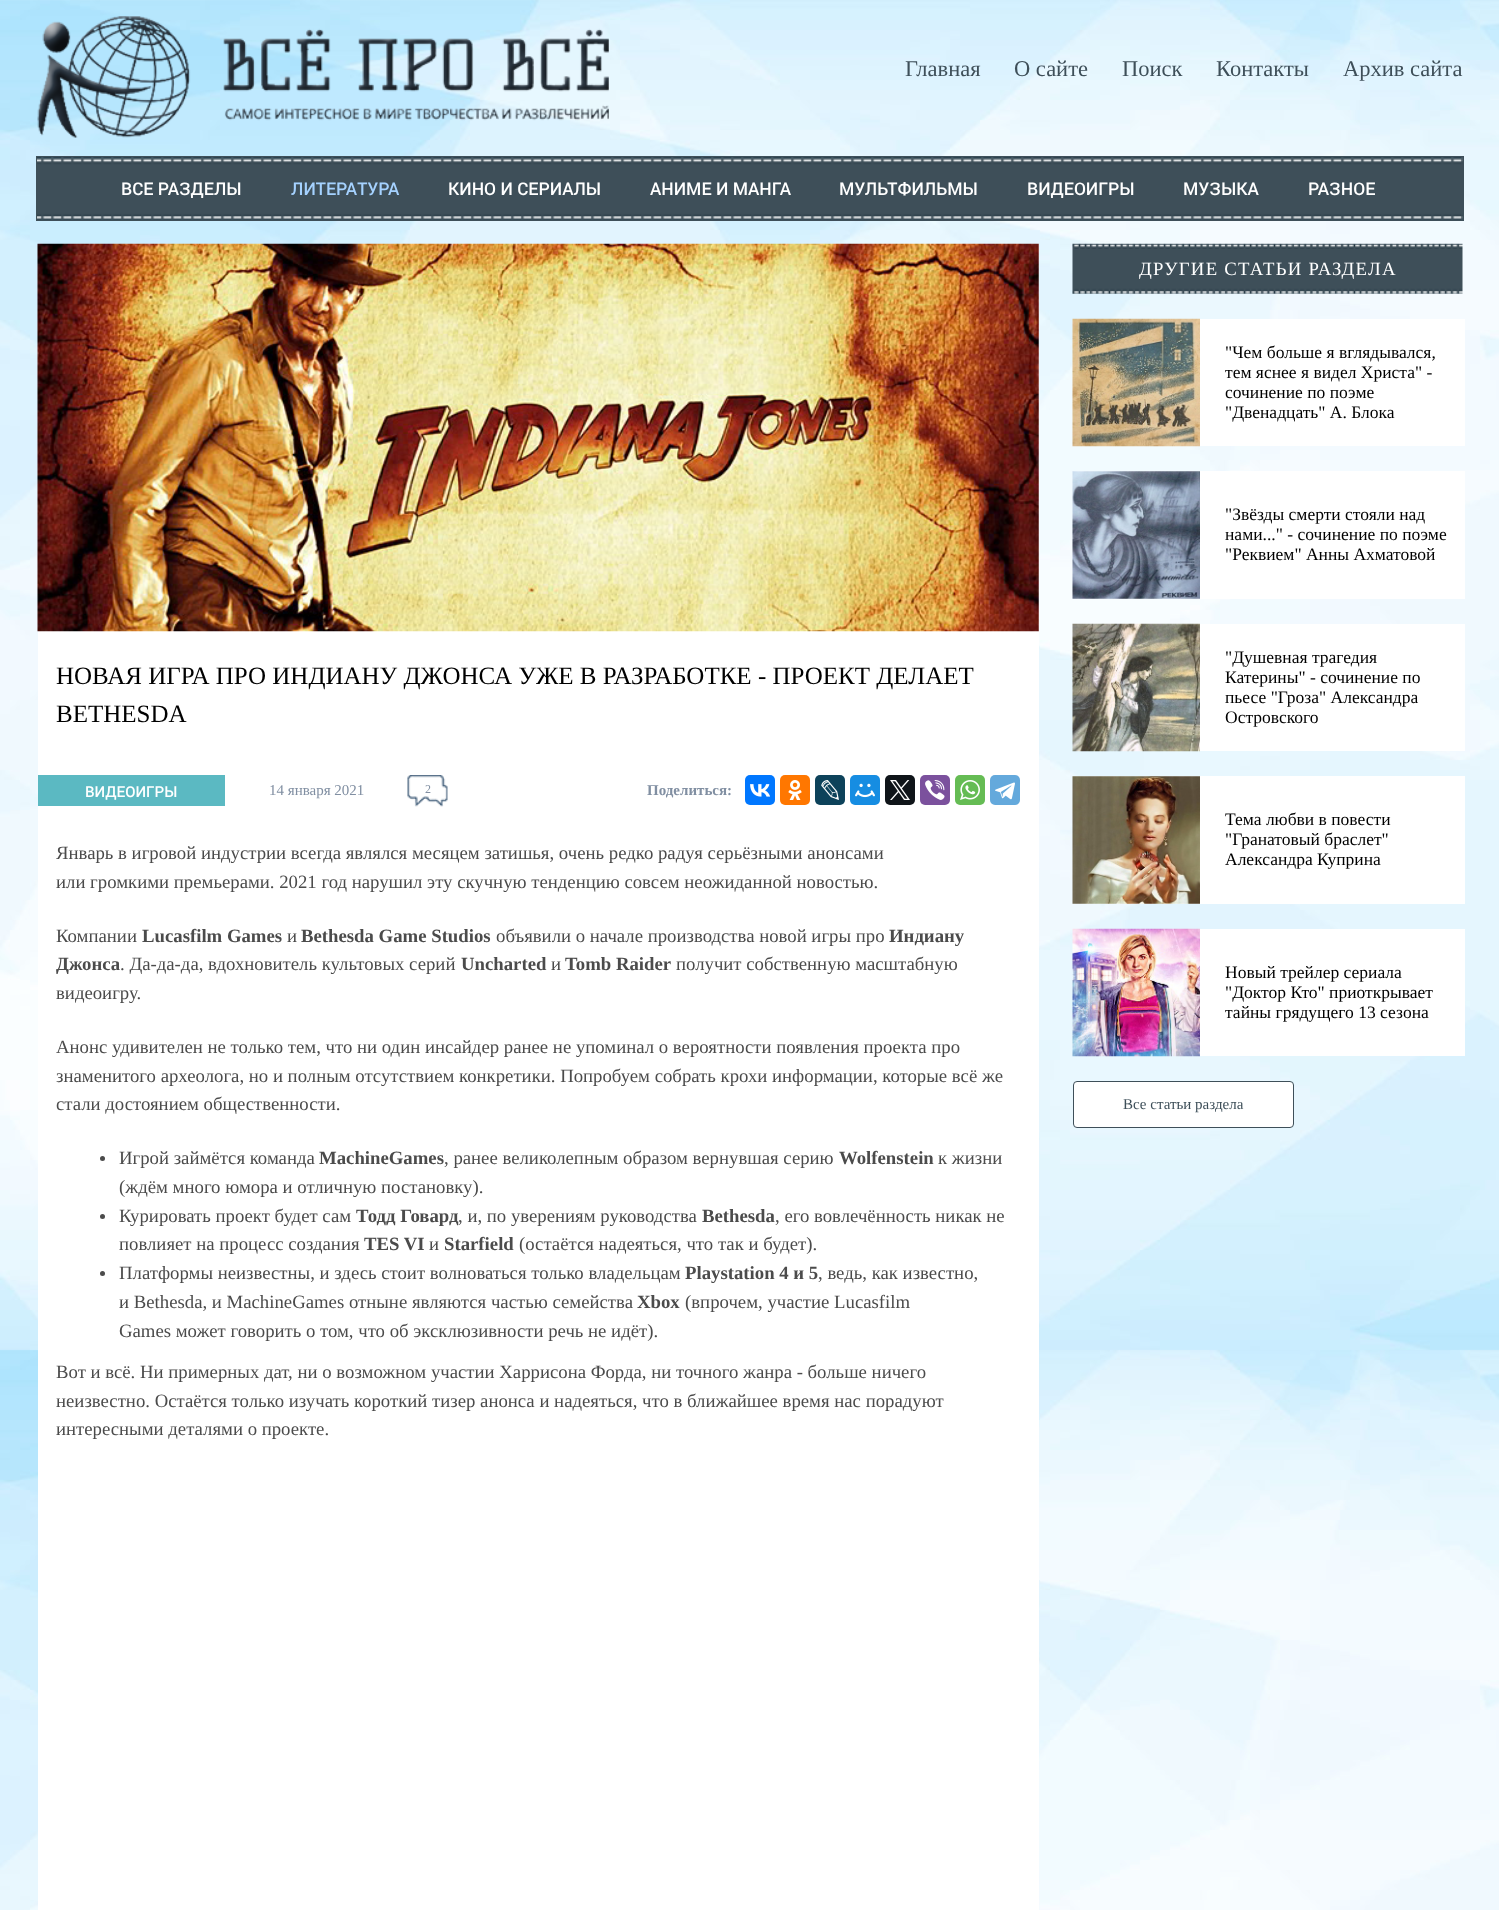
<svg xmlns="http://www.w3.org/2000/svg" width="1499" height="1910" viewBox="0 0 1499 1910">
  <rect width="100%" height="100%" fill="rgb(255,255,255)"/>
  <image x="0" y="0" width="1499" height="1910" href="pic1.png"/>
  <image x="37" y="16" width="572" height="122" href="pic2.png"/>
  <g font-family="Liberation Serif" font-size="22.5" fill="rgb(62,79,89)">
    <text x="905" y="76">Главная</text>
    <text x="1014" y="76">О сайте</text>
    <text x="1122" y="76">Поиск</text>
    <text x="1216" y="76">Контакты</text>
    <text x="1343" y="76">Архив сайта</text>
  </g>
  <image x="37" y="157" width="1426" height="63" href="pic3.png"/>
  <rect x="36.5" y="156.5" width="1427" height="64" fill="none" stroke="rgb(62,79,89)"/>
  <text x="121" y="195" font-family="Roboto" font-size="17.5" font-weight="500" fill="rgb(255,255,255)">ВСЕ РАЗДЕЛЫ</text>
  <text x="291" y="195" font-family="Roboto" font-size="17.5" font-weight="500" fill="rgb(165,210,255)">ЛИТЕРАТУРА</text>
  <g font-family="Roboto" font-size="17.5" font-weight="500" fill="rgb(255,255,255)">
    <text x="448" y="195">КИНО И СЕРИАЛЫ</text>
    <text x="650" y="195">АНИМЕ И МАНГА</text>
    <text x="839" y="195">МУЛЬТФИЛЬМЫ</text>
    <text x="1027" y="195">ВИДЕОИГРЫ</text>
    <text x="1183" y="195">МУЗЫКА</text>
    <text x="1308" y="195">РАЗНОЕ</text>
  </g>
  <rect x="38" y="244" width="1001" height="1666" fill="rgb(255,255,255)"/>
  <image x="37" y="243" width="1002" height="389" href="pic4.png"/>
  <g font-family="Liberation Serif" font-size="25" fill="rgb(0,0,0)">
    <text>
      <tspan x="56" y="684">НОВАЯ ИГРА ПРО ИНДИАНУ ДЖОНСА УЖЕ В РАЗРАБОТКЕ - ПРОЕКТ ДЕЛАЕТ</tspan>
      <tspan x="56" y="722">BETHESDA</tspan>
    </text>
  </g>
  <rect x="38" y="775" width="187" height="31" fill="rgb(91,185,194)"/>
  <text x="85" y="797" font-family="Roboto" font-size="15" font-weight="500" fill="rgb(255,255,255)">ВИДЕОИГРЫ</text>
  <text x="269" y="795" font-family="Liberation Serif" font-size="15" fill="rgb(129,143,162)">14 января 2021</text>
  <image x="407" y="775" width="41" height="32" href="pic5.png"/>
  <text x="425" y="793" font-family="Liberation Serif" font-size="12" fill="rgb(129,143,162)">2</text>
  <text x="647" y="795" font-family="Liberation Serif" font-size="15" font-weight="bold" fill="rgb(129,143,162)">Поделиться:</text>
  <rect x="745" y="775" width="30" height="30" rx="5" fill="rgb(0,119,255)"/>
  <image x="750" y="784" width="20" height="13" href="pic6.png"/>
  <rect x="780" y="775" width="30" height="30" rx="5" fill="rgb(255,119,0)"/>
  <image x="788" y="780" width="14" height="20" href="pic7.png"/>
  <rect x="815" y="775" width="30" height="30" rx="5" fill="rgb(13,66,90)"/>
  <image x="821" y="780" width="18" height="20" href="pic8.png"/>
  <rect x="850" y="775" width="30" height="30" rx="5" fill="rgb(22,141,226)"/>
  <image x="855" y="783" width="20" height="15" href="pic9.png"/>
  <rect x="885" y="775" width="30" height="30" rx="5" fill="rgb(15,20,25)"/>
  <image x="890" y="780" width="20" height="20" href="pic10.png"/>
  <rect x="920" y="775" width="30" height="30" rx="5" fill="rgb(123,81,157)"/>
  <image x="925" y="780" width="20" height="20" href="pic11.png"/>
  <rect x="955" y="775" width="30" height="30" rx="5" fill="rgb(101,188,84)"/>
  <image x="960" y="780" width="20" height="20" href="pic12.png"/>
  <rect x="990" y="775" width="30" height="30" rx="5" fill="rgb(100,169,220)"/>
  <image x="995" y="782" width="20" height="18" href="pic13.png"/>
  <g font-family="Liberation Serif" font-size="18.75" fill="rgb(75,75,75)">
    <text>
      <tspan x="56" y="859">Январь в игровой индустрии всегда являлся месяцем затишья, очень редко радуя серьёзными анонсами</tspan>
      <tspan x="56" y="888">или громкими премьерами. 2021 год нарушил эту скучную тенденцию совсем неожиданной новостью.</tspan>
    </text>
    <text x="56" y="942">Компании</text>
  </g>
  <text x="142" y="942" font-family="Liberation Serif" font-size="18.75" font-weight="bold" fill="rgb(75,75,75)">Lucasfilm Games</text>
  <text x="287" y="942" font-family="Liberation Serif" font-size="18.75" fill="rgb(75,75,75)">и</text>
  <text x="301" y="942" font-family="Liberation Serif" font-size="18.75" font-weight="bold" fill="rgb(75,75,75)">Bethesda Game Studios</text>
  <text x="496" y="942" font-family="Liberation Serif" font-size="18.75" fill="rgb(75,75,75)">объявили о начале производства новой игры про</text>
  <g font-family="Liberation Serif" font-size="18.75" font-weight="bold" fill="rgb(75,75,75)">
    <text x="889" y="942">Индиану</text>
    <text x="56" y="970">Джонса</text>
  </g>
  <text x="120" y="970" font-family="Liberation Serif" font-size="18.75" fill="rgb(75,75,75)">. Да-да-да, вдохновитель культовых серий</text>
  <text x="461" y="970" font-family="Liberation Serif" font-size="18.75" font-weight="bold" fill="rgb(75,75,75)">Uncharted</text>
  <text x="551" y="970" font-family="Liberation Serif" font-size="18.75" fill="rgb(75,75,75)">и</text>
  <text x="565" y="970" font-family="Liberation Serif" font-size="18.75" font-weight="bold" fill="rgb(75,75,75)">Tomb Raider</text>
  <g font-family="Liberation Serif" font-size="18.75" fill="rgb(75,75,75)">
    <text x="676" y="970">получит собственную масштабную</text>
    <text x="56" y="999">видеоигру.</text>
    <text>
      <tspan x="56" y="1053">Анонс удивителен не только тем, что ни один инсайдер ранее не упоминал о вероятности появления проекта про</tspan>
      <tspan x="56" y="1082">знаменитого археолога, но и полным отсутствием конкретики. Попробуем собрать крохи информации, которые всё же</tspan>
      <tspan x="56" y="1110">стали достоянием общественности.</tspan>
    </text>
  </g>
  <circle cx="102.5" cy="1158.5" r="2.5" fill="rgb(75,75,75)"/>
  <text x="119" y="1164" font-family="Liberation Serif" font-size="18.75" fill="rgb(75,75,75)">Игрой займётся команда</text>
  <text x="319" y="1164" font-family="Liberation Serif" font-size="18.75" font-weight="bold" fill="rgb(75,75,75)">MachineGames</text>
  <text x="444" y="1164" font-family="Liberation Serif" font-size="18.75" fill="rgb(75,75,75)">, ранее великолепным образом вернувшая серию</text>
  <text x="839" y="1164" font-family="Liberation Serif" font-size="18.75" font-weight="bold" fill="rgb(75,75,75)">Wolfenstein</text>
  <g font-family="Liberation Serif" font-size="18.75" fill="rgb(75,75,75)">
    <text x="938" y="1164">к жизни</text>
    <text x="119" y="1193">(ждём много юмора и отличную постановку).</text>
  </g>
  <circle cx="102.5" cy="1216.5" r="2.5" fill="rgb(75,75,75)"/>
  <text x="119" y="1222" font-family="Liberation Serif" font-size="18.75" fill="rgb(75,75,75)">Курировать проект будет сам</text>
  <text x="356" y="1222" font-family="Liberation Serif" font-size="18.75" font-weight="bold" fill="rgb(75,75,75)">Тодд Говард</text>
  <text x="458" y="1222" font-family="Liberation Serif" font-size="18.75" fill="rgb(75,75,75)">, и, по уверениям руководства</text>
  <text x="702" y="1222" font-family="Liberation Serif" font-size="18.75" font-weight="bold" fill="rgb(75,75,75)">Bethesda</text>
  <g font-family="Liberation Serif" font-size="18.75" fill="rgb(75,75,75)">
    <text x="775" y="1222">, его вовлечённость никак не</text>
    <text x="119" y="1250">повлияет на процесс создания</text>
  </g>
  <text x="364" y="1250" font-family="Liberation Serif" font-size="18.75" font-weight="bold" fill="rgb(75,75,75)">TES VI</text>
  <text x="429" y="1250" font-family="Liberation Serif" font-size="18.75" fill="rgb(75,75,75)">и</text>
  <text x="444" y="1250" font-family="Liberation Serif" font-size="18.75" font-weight="bold" fill="rgb(75,75,75)">Starfield</text>
  <text x="519" y="1250" font-family="Liberation Serif" font-size="18.75" fill="rgb(75,75,75)">(остаётся надеяться, что так и будет).</text>
  <circle cx="102.5" cy="1273.5" r="2.5" fill="rgb(75,75,75)"/>
  <text x="119" y="1279" font-family="Liberation Serif" font-size="18.75" fill="rgb(75,75,75)">Платформы неизвестны, и здесь стоит волноваться только владельцам</text>
  <text x="685" y="1279" font-family="Liberation Serif" font-size="18.75" font-weight="bold" fill="rgb(75,75,75)">Playstation 4 и 5</text>
  <g font-family="Liberation Serif" font-size="18.75" fill="rgb(75,75,75)">
    <text x="818" y="1279">, ведь, как известно,</text>
    <text x="119" y="1308">и Bethesda, и MachineGames отныне являются частью семейства</text>
  </g>
  <text x="637" y="1308" font-family="Liberation Serif" font-size="18.75" font-weight="bold" fill="rgb(75,75,75)">Xbox</text>
  <g font-family="Liberation Serif" font-size="18.75" fill="rgb(75,75,75)">
    <text x="685" y="1308">(впрочем, участие Lucasfilm</text>
    <text x="119" y="1337">Games может говорить о том, что об эксклюзивности речь не идёт).</text>
    <text>
      <tspan x="56" y="1378">Вот и всё. Ни примерных дат, ни о возможном участии Харрисона Форда, ни точного жанра - больше ничего</tspan>
      <tspan x="56" y="1407">неизвестно. Остаётся только изучать короткий тизер анонса и надеяться, что в ближайшее время нас порадуют</tspan>
      <tspan x="56" y="1435">интересными деталями о проекте.</tspan>
    </text>
  </g>
  <image x="1072" y="243" width="391" height="51" href="pic14.png"/>
  <text x="1139" y="275" font-family="Liberation Serif" font-size="18.75" letter-spacing="1.25" fill="rgb(255,255,255)">ДРУГИЕ СТАТЬИ РАЗДЕЛА</text>
  <rect x="1200" y="319" width="265" height="127" fill="rgb(255,255,255)"/>
  <image x="1072" y="318" width="128" height="129" href="pic15.png"/>
  <g font-family="Liberation Serif" font-size="17.5" fill="rgb(0,0,0)">
    <text>
      <tspan x="1225" y="358">"Чем больше я вглядывался,</tspan>
      <tspan x="1225" y="378">тем яснее я видел Христа" -</tspan>
      <tspan x="1225" y="398">сочинение по поэме</tspan>
      <tspan x="1225" y="418">"Двенадцать" А. Блока</tspan>
    </text>
  </g>
  <rect x="1073" y="471" width="392" height="128" fill="rgb(255,255,255)"/>
  <image x="1072" y="471" width="128" height="128" href="pic16.png"/>
  <g font-family="Liberation Serif" font-size="17.5" fill="rgb(0,0,0)">
    <text>
      <tspan x="1225" y="520">"Звёзды смерти стояли над</tspan>
      <tspan x="1225" y="540">нами..." - сочинение по поэме</tspan>
      <tspan x="1225" y="560">"Реквием" Анны Ахматовой</tspan>
    </text>
  </g>
  <rect x="1200" y="624" width="265" height="127" fill="rgb(255,255,255)"/>
  <image x="1072" y="623" width="128" height="129" href="pic17.png"/>
  <g font-family="Liberation Serif" font-size="17.5" fill="rgb(0,0,0)">
    <text>
      <tspan x="1225" y="663">"Душевная трагедия</tspan>
      <tspan x="1225" y="683">Катерины" - сочинение по</tspan>
      <tspan x="1225" y="703">пьесе "Гроза" Александра</tspan>
      <tspan x="1225" y="723">Островского</tspan>
    </text>
  </g>
  <rect x="1073" y="776" width="392" height="128" fill="rgb(255,255,255)"/>
  <image x="1072" y="776" width="128" height="128" href="pic18.png"/>
  <g font-family="Liberation Serif" font-size="17.5" fill="rgb(0,0,0)">
    <text>
      <tspan x="1225" y="825">Тема любви в повести</tspan>
      <tspan x="1225" y="845">"Гранатовый браслет"</tspan>
      <tspan x="1225" y="865">Александра Куприна</tspan>
    </text>
  </g>
  <rect x="1200" y="929" width="265" height="127" fill="rgb(255,255,255)"/>
  <image x="1072" y="928" width="128" height="129" href="pic19.png"/>
  <g font-family="Liberation Serif" font-size="17.5" fill="rgb(0,0,0)">
    <text>
      <tspan x="1225" y="978">Новый трейлер сериала</tspan>
      <tspan x="1225" y="998">"Доктор Кто" приоткрывает</tspan>
      <tspan x="1225" y="1018">тайны грядущего 13 сезона</tspan>
    </text>
  </g>
  <rect x="1073.5" y="1081.5" width="220" height="46" rx="3.5" fill="rgb(255,255,255)" stroke="rgb(62,79,89)"/>
  <text x="1123" y="1109" font-family="Liberation Serif" font-size="15" fill="rgb(62,79,89)">Все статьи раздела</text>
</svg>
